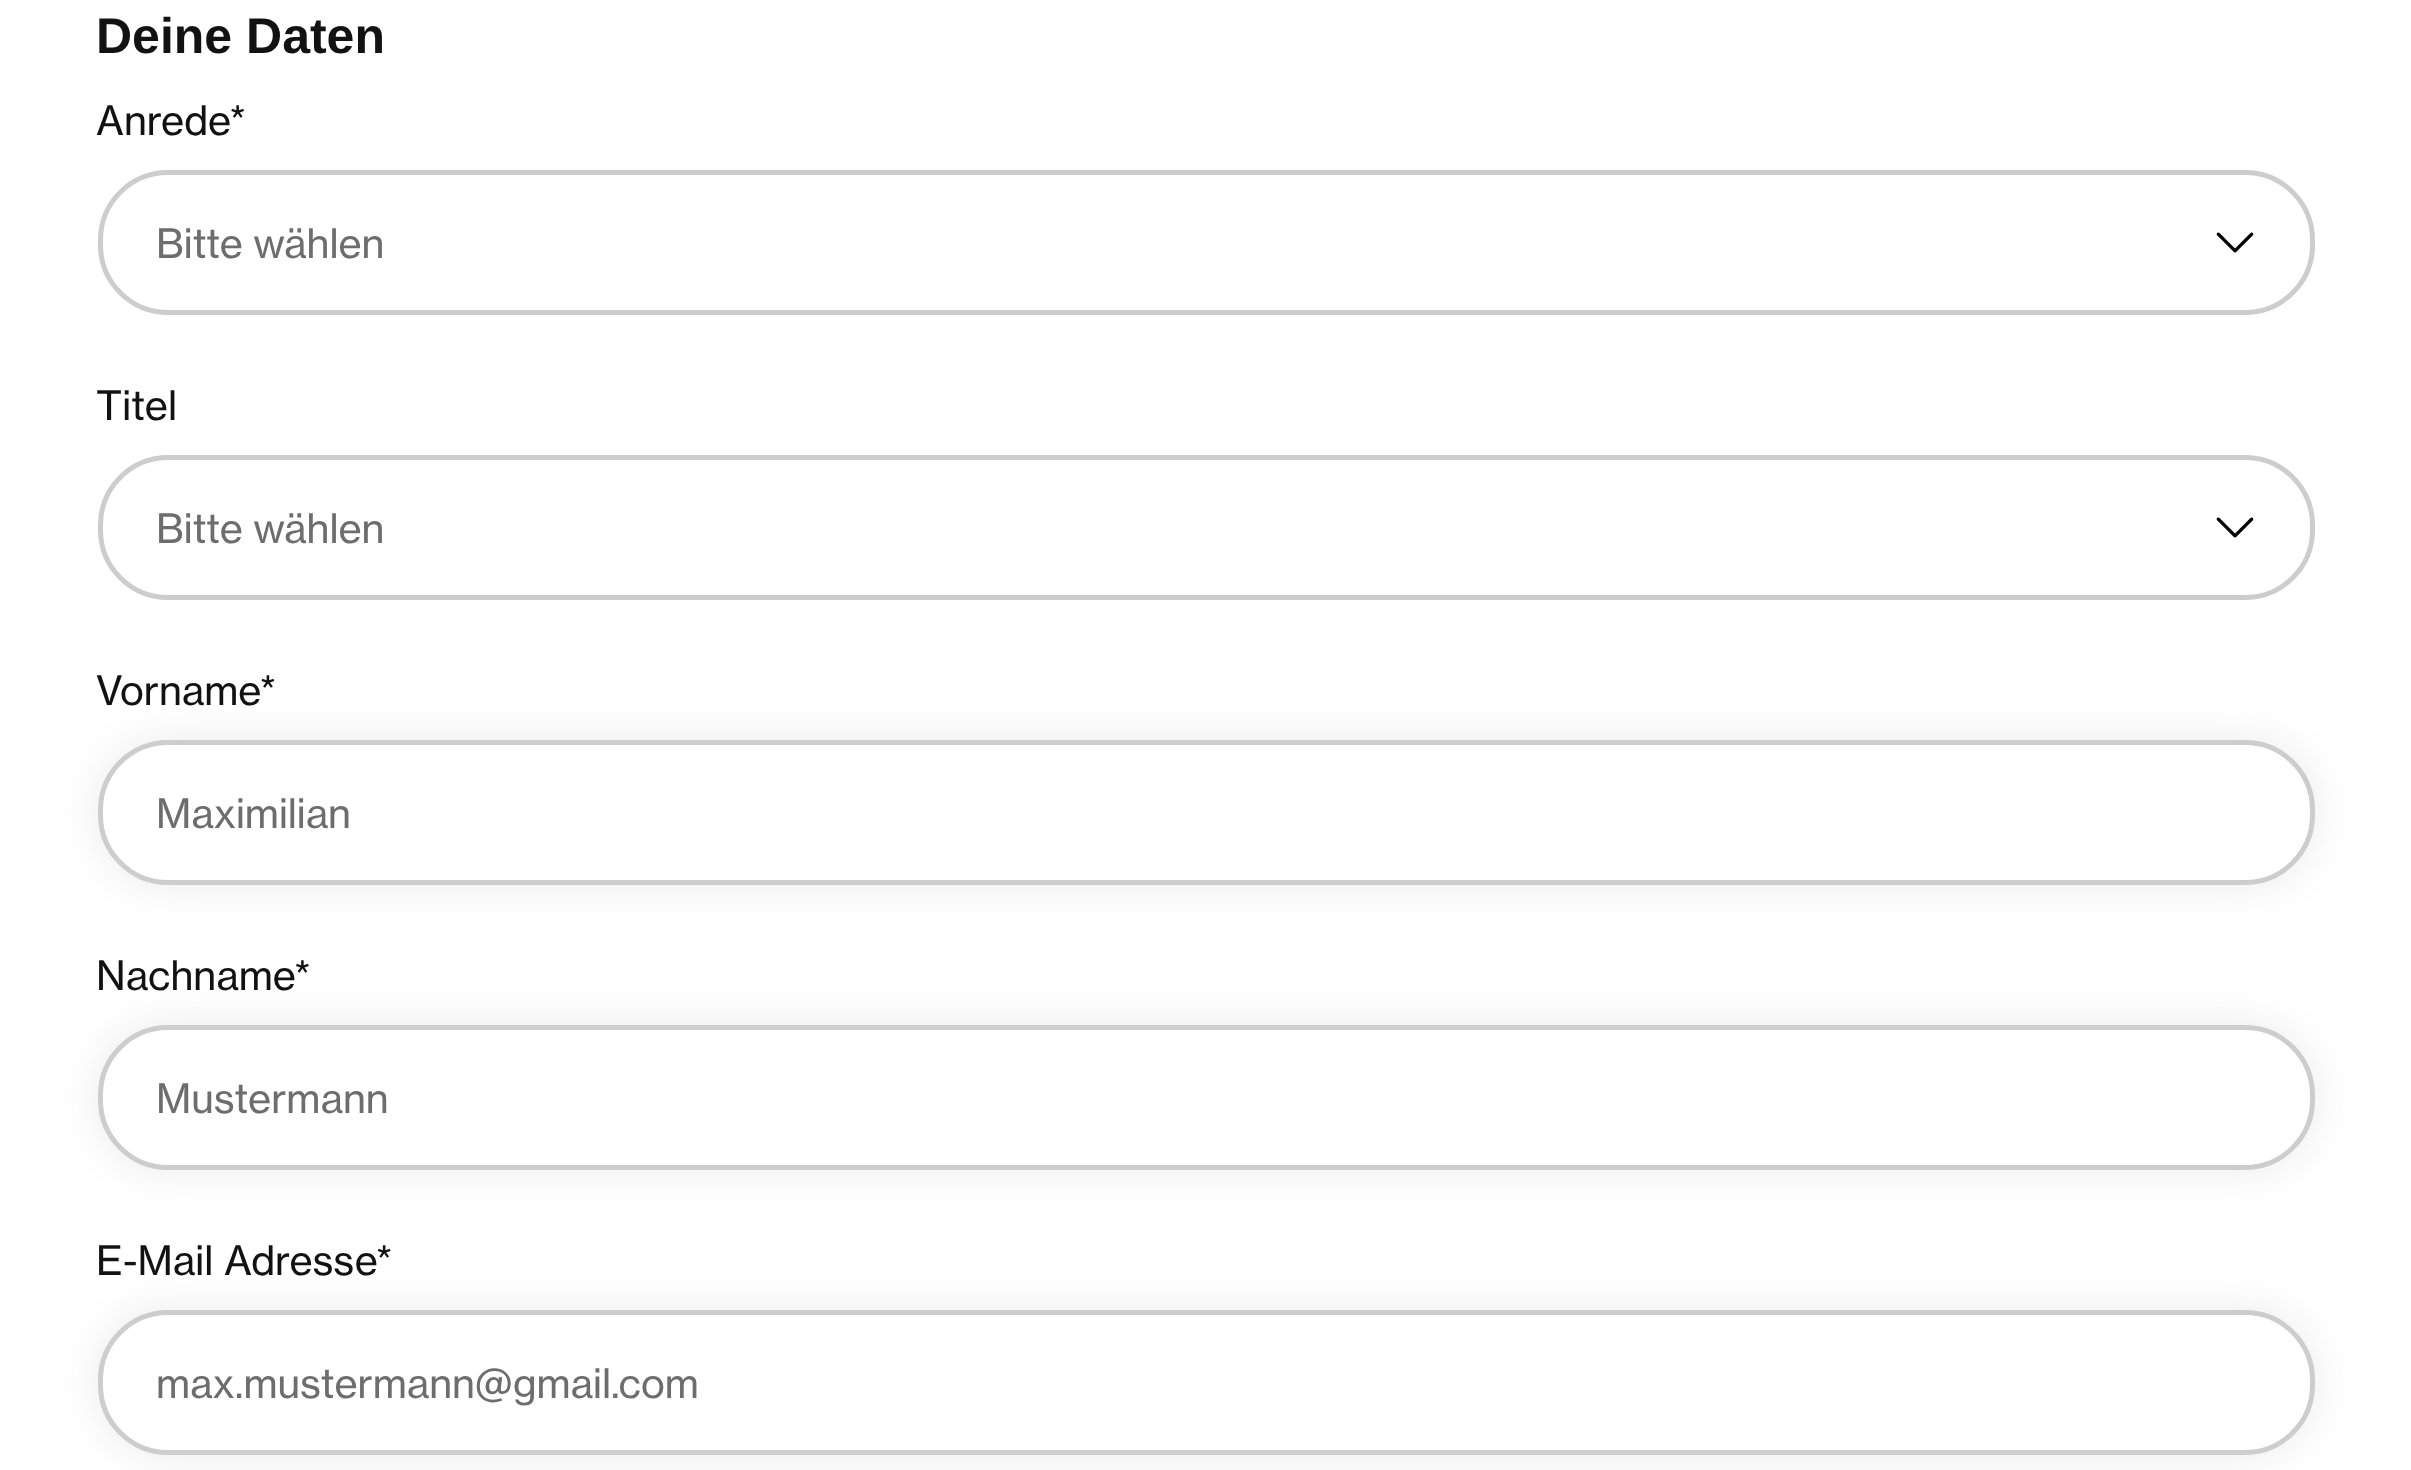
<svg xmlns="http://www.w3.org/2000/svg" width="2411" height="1470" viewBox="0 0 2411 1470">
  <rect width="100%" height="100%" fill="rgb(255,255,255)"/>
  <text x="96" y="53" font-family="Liberation Sans" font-size="50" font-weight="bold" fill="rgb(18,18,18)">Deine Daten</text>
  <text x="96" y="135" font-family="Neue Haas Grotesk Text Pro" font-size="40" fill="rgb(18,18,18)">Anrede*</text>
  <rect x="100.5" y="172.5" width="2212" height="140" rx="67.5" fill="none" stroke="rgb(205,205,205)" stroke-width="5"/>
  <text x="156" y="258" font-family="Neue Haas Grotesk Text Pro" font-size="40" fill="rgb(109,109,109)">Bitte wählen</text>
  <image x="2216" y="232" width="38" height="21" href="pic1.png"/>
  <text x="96" y="420" font-family="Neue Haas Grotesk Text Pro" font-size="40" fill="rgb(18,18,18)">Titel</text>
  <rect x="100.5" y="457.5" width="2212" height="140" rx="67.5" fill="none" stroke="rgb(205,205,205)" stroke-width="5"/>
  <text x="156" y="543" font-family="Neue Haas Grotesk Text Pro" font-size="40" fill="rgb(109,109,109)">Bitte wählen</text>
  <image x="2216" y="517" width="38" height="21" href="pic1.png"/>
  <text x="96" y="705" font-family="Neue Haas Grotesk Text Pro" font-size="40" fill="rgb(18,18,18)">Vorname*</text>
  <rect x="98" y="740" width="2217" height="145" rx="70" fill="rgba(15,15,15,0.08)" filter="blur(20px)"/>
  <rect x="100.5" y="742.5" width="2212" height="140" rx="67.5" fill="rgb(255,255,255)" stroke="rgb(205,205,205)" stroke-width="5"/>
  <text x="156" y="828" font-family="Neue Haas Grotesk Text Pro" font-size="40" fill="rgb(109,109,109)">Maximilian</text>
  <text x="96" y="990" font-family="Neue Haas Grotesk Text Pro" font-size="40" fill="rgb(18,18,18)">Nachname*</text>
  <rect x="98" y="1025" width="2217" height="145" rx="70" fill="rgba(15,15,15,0.08)" filter="blur(20px)"/>
  <rect x="100.5" y="1027.5" width="2212" height="140" rx="67.5" fill="rgb(255,255,255)" stroke="rgb(205,205,205)" stroke-width="5"/>
  <text x="156" y="1113" font-family="Neue Haas Grotesk Text Pro" font-size="40" fill="rgb(109,109,109)">Mustermann</text>
  <text x="96" y="1275" font-family="Neue Haas Grotesk Text Pro" font-size="40" fill="rgb(18,18,18)">E-Mail Adresse*</text>
  <rect x="98" y="1310" width="2217" height="145" rx="70" fill="rgba(15,15,15,0.08)" filter="blur(20px)"/>
  <rect x="100.5" y="1312.5" width="2212" height="140" rx="67.5" fill="rgb(255,255,255)" stroke="rgb(205,205,205)" stroke-width="5"/>
  <text x="156" y="1398" font-family="Neue Haas Grotesk Text Pro" font-size="40" fill="rgb(109,109,109)">max.mustermann@gmail.com</text>
</svg>
